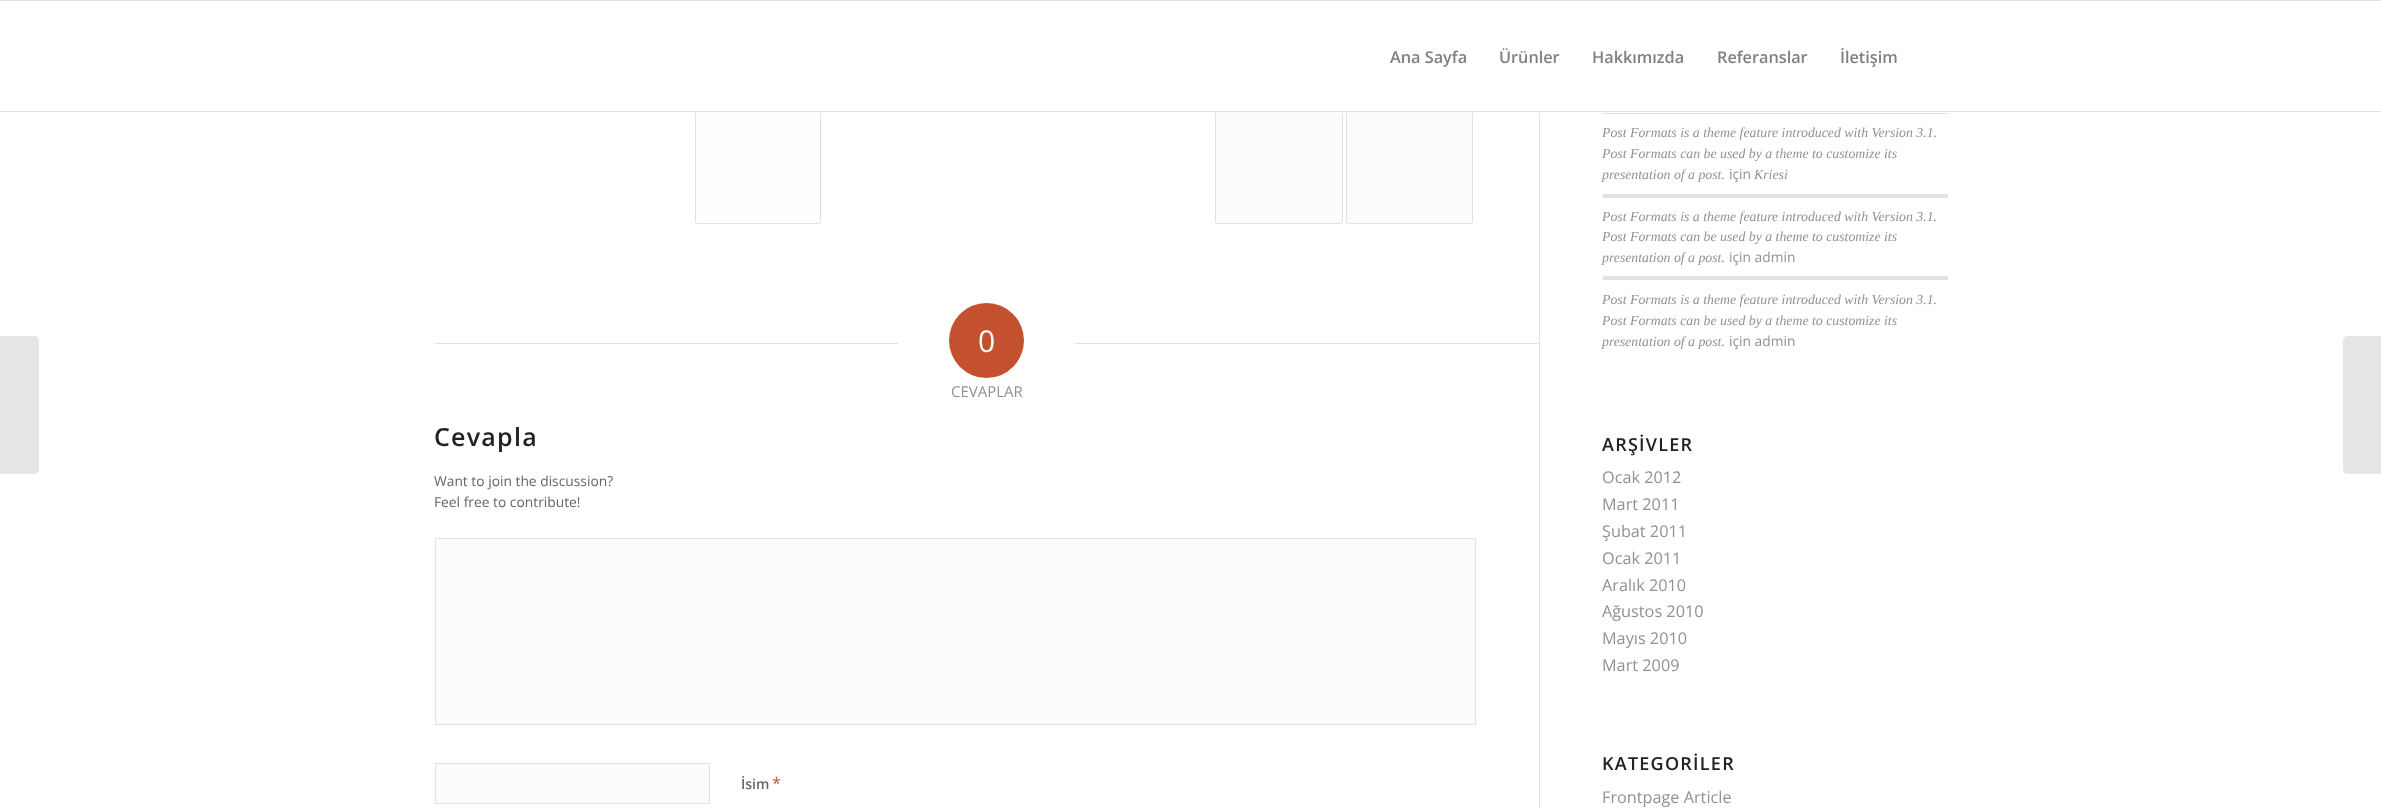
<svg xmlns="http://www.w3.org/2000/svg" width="2381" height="809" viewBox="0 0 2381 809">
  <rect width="100%" height="100%" fill="rgb(255,255,255)"/>
  <rect x="1539" y="0" width="1" height="809" fill="rgb(225,225,225)"/>
  <rect x="435" y="20" width="1104" height="1" fill="rgb(225,225,225)"/>
  <rect x="695.5" y="98.5" width="125" height="125" rx="2" fill="rgb(252,252,252)" stroke="rgb(225,225,225)"/>
  <rect x="696" y="99" width="124" height="124" fill="rgba(255,255,255,0.5)"/>
  <rect x="1215.5" y="98.5" width="127" height="125" rx="2" fill="rgb(252,252,252)" stroke="rgb(225,225,225)"/>
  <rect x="1216" y="99" width="1" height="124" fill="rgba(255,255,255,0.5)"/>
  <rect x="1346.5" y="98.5" width="126" height="125" rx="2" fill="rgb(252,252,252)" stroke="rgb(225,225,225)"/>
  <rect x="1603" y="26" width="345" height="4" fill="rgb(225,225,225)"/>
  <rect x="1603" y="110" width="345" height="4" fill="rgb(225,225,225)"/>
  <rect x="435" y="1" width="1513" height="112" fill="rgba(255,255,255,0.95)"/>
  <rect x="0" y="0" width="2381" height="1" fill="rgb(225,225,225)"/>
  <rect x="0" y="111" width="2381" height="1" fill="rgb(225,225,225)"/>
  <g font-family="Open Sans" font-size="16.25" font-weight="600" fill="rgb(128,128,128)">
    <text x="1390" y="63">Ana Sayfa</text>
    <text x="1499" y="63">Ürünler</text>
    <text x="1592" y="63">Hakkımızda</text>
    <text x="1717" y="63">Referanslar</text>
    <text x="1840" y="63">İletişim</text>
  </g>
  <path d="M0 336H34C37 336 39 338 39 341V469C39 472 37 474 34 474H0Z" fill="rgb(230,230,230)"/>
  <rect x="435" y="343" width="463" height="1" fill="rgb(225,225,225)"/>
  <circle cx="986.5" cy="340.5" r="37.5" fill="rgb(195,81,47)"/>
  <text x="978" y="352" font-family="Open Sans" font-size="30" fill="rgb(255,255,255)">0</text>
  <rect x="1075" y="343" width="464" height="1" fill="rgb(225,225,225)"/>
  <text x="951" y="397" font-family="Open Sans" font-size="15" fill="rgb(145,145,145)">CEVAPLAR</text>
  <text x="434" y="446" font-family="Open Sans" font-size="25" font-weight="600" letter-spacing="1.25" fill="rgb(34,34,34)">Cevapla</text>
  <g font-family="Open Sans" font-size="13.8" fill="rgb(102,102,102)">
    <text>
      <tspan x="434" y="486">Want to join the discussion?</tspan>
      <tspan x="434" y="507">Feel free to contribute!</tspan>
    </text>
  </g>
  <rect x="435.5" y="538.5" width="1040" height="186" fill="rgb(252,252,252)" stroke="rgb(225,225,225)"/>
  <rect x="435.5" y="763.5" width="274" height="40" fill="rgb(252,252,252)" stroke="rgb(225,225,225)"/>
  <text x="741" y="789" font-family="Open Sans" font-size="14" font-weight="600" fill="rgb(102,102,102)">İsim</text>
  <text x="772" y="789" font-family="Open Sans" font-size="16.25" fill="rgb(195,81,47)">*</text>
  <g font-family="Liberation Serif" font-size="13.8" font-style="italic" fill="rgb(145,145,145)">
    <text>
      <tspan x="1602" y="137">Post Formats is a theme feature introduced with Version 3.1.</tspan>
      <tspan x="1602" y="158">Post Formats can be used by a theme to customize its</tspan>
      <tspan x="1602" y="179">presentation of a post.</tspan>
    </text>
  </g>
  <text x="1729" y="179" font-family="Open Sans" font-size="13.8" fill="rgb(145,145,145)">için</text>
  <text x="1754" y="179" font-family="Liberation Serif" font-size="13.8" font-style="italic" fill="rgb(145,145,145)">Kriesi</text>
  <rect x="1603" y="194" width="345" height="4" fill="rgb(225,225,225)"/>
  <g font-family="Liberation Serif" font-size="13.8" font-style="italic" fill="rgb(145,145,145)">
    <text>
      <tspan x="1602" y="221">Post Formats is a theme feature introduced with Version 3.1.</tspan>
      <tspan x="1602" y="241">Post Formats can be used by a theme to customize its</tspan>
      <tspan x="1602" y="262">presentation of a post.</tspan>
    </text>
  </g>
  <text x="1729" y="262" font-family="Open Sans" font-size="13.8" fill="rgb(145,145,145)">için admin</text>
  <rect x="1603" y="276" width="345" height="4" fill="rgb(225,225,225)"/>
  <g font-family="Liberation Serif" font-size="13.8" font-style="italic" fill="rgb(145,145,145)">
    <text>
      <tspan x="1602" y="304">Post Formats is a theme feature introduced with Version 3.1.</tspan>
      <tspan x="1602" y="325">Post Formats can be used by a theme to customize its</tspan>
      <tspan x="1602" y="346">presentation of a post.</tspan>
    </text>
  </g>
  <text x="1729" y="346" font-family="Open Sans" font-size="13.8" fill="rgb(145,145,145)">için admin</text>
  <text x="1602" y="451" font-family="Open Sans" font-size="18" font-weight="600" letter-spacing="1.25" fill="rgb(34,34,34)">ARŞİVLER</text>
  <g font-family="Open Sans" font-size="16.25" fill="rgb(145,145,145)">
    <text>
      <tspan x="1602" y="483">Ocak 2012</tspan>
      <tspan x="1602" y="510">Mart 2011</tspan>
      <tspan x="1602" y="537">Şubat 2011</tspan>
      <tspan x="1602" y="564">Ocak 2011</tspan>
      <tspan x="1602" y="591">Aralık 2010</tspan>
      <tspan x="1602" y="617">Ağustos 2010</tspan>
      <tspan x="1602" y="644">Mayıs 2010</tspan>
      <tspan x="1602" y="671">Mart 2009</tspan>
    </text>
  </g>
  <text x="1602" y="770" font-family="Open Sans" font-size="18" font-weight="600" letter-spacing="1.25" fill="rgb(34,34,34)">KATEGORİLER</text>
  <text x="1602" y="803" font-family="Open Sans" font-size="16.25" fill="rgb(145,145,145)">Frontpage Article</text>
  <path d="M2348 336H2381V474H2348C2345 474 2343 472 2343 469V341C2343 338 2345 336 2348 336Z" fill="rgb(230,230,230)"/>
</svg>
